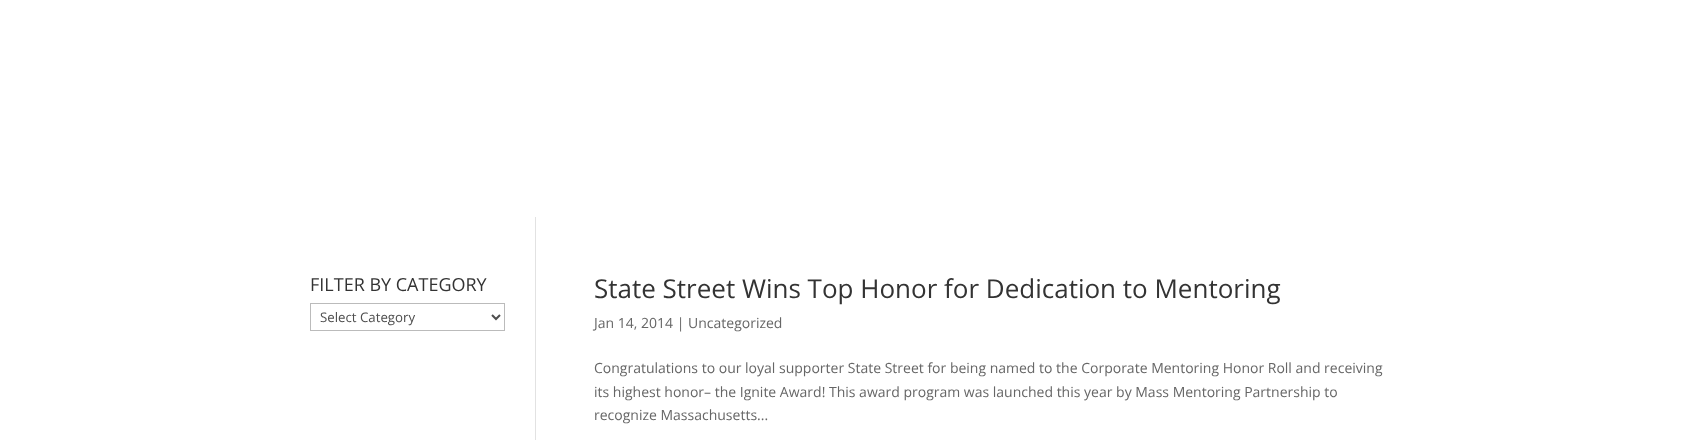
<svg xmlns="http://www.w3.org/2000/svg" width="1699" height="440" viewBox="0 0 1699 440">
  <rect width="100%" height="100%" fill="rgb(255,255,255)"/>
  <rect x="535" y="217" width="1" height="223" fill="rgb(226,226,226)"/>
  <text x="310" y="291" font-family="Open Sans" font-size="18" fill="rgb(51,51,51)">FILTER BY CATEGORY</text>
  <rect x="310.5" y="303.5" width="194" height="27" fill="none" stroke="rgb(187,187,187)"/>
  <path d="M492 315L496 319L500 315" fill="none" stroke="rgb(78,78,78)" stroke-width="2"/>
  <text x="320" y="322" font-family="Open Sans" font-size="13.25" fill="rgb(78,78,78)">Select Category</text>
  <text x="594" y="298" font-family="Open Sans" font-size="26" fill="rgb(51,51,51)">State Street Wins Top Honor for Dedication to Mentoring</text>
  <g font-family="Open Sans" font-size="14" fill="rgb(102,102,102)">
    <text x="594" y="328">Jan 14, 2014 | Uncategorized</text>
    <text>
      <tspan x="594" y="373">Congratulations to our loyal supporter State Street for being named to the Corporate Mentoring Honor Roll and receiving</tspan>
      <tspan x="594" y="397">its highest honor– the Ignite Award! This award program was launched this year by Mass Mentoring Partnership to</tspan>
      <tspan x="594" y="420">recognize Massachusetts...</tspan>
    </text>
  </g>
</svg>
